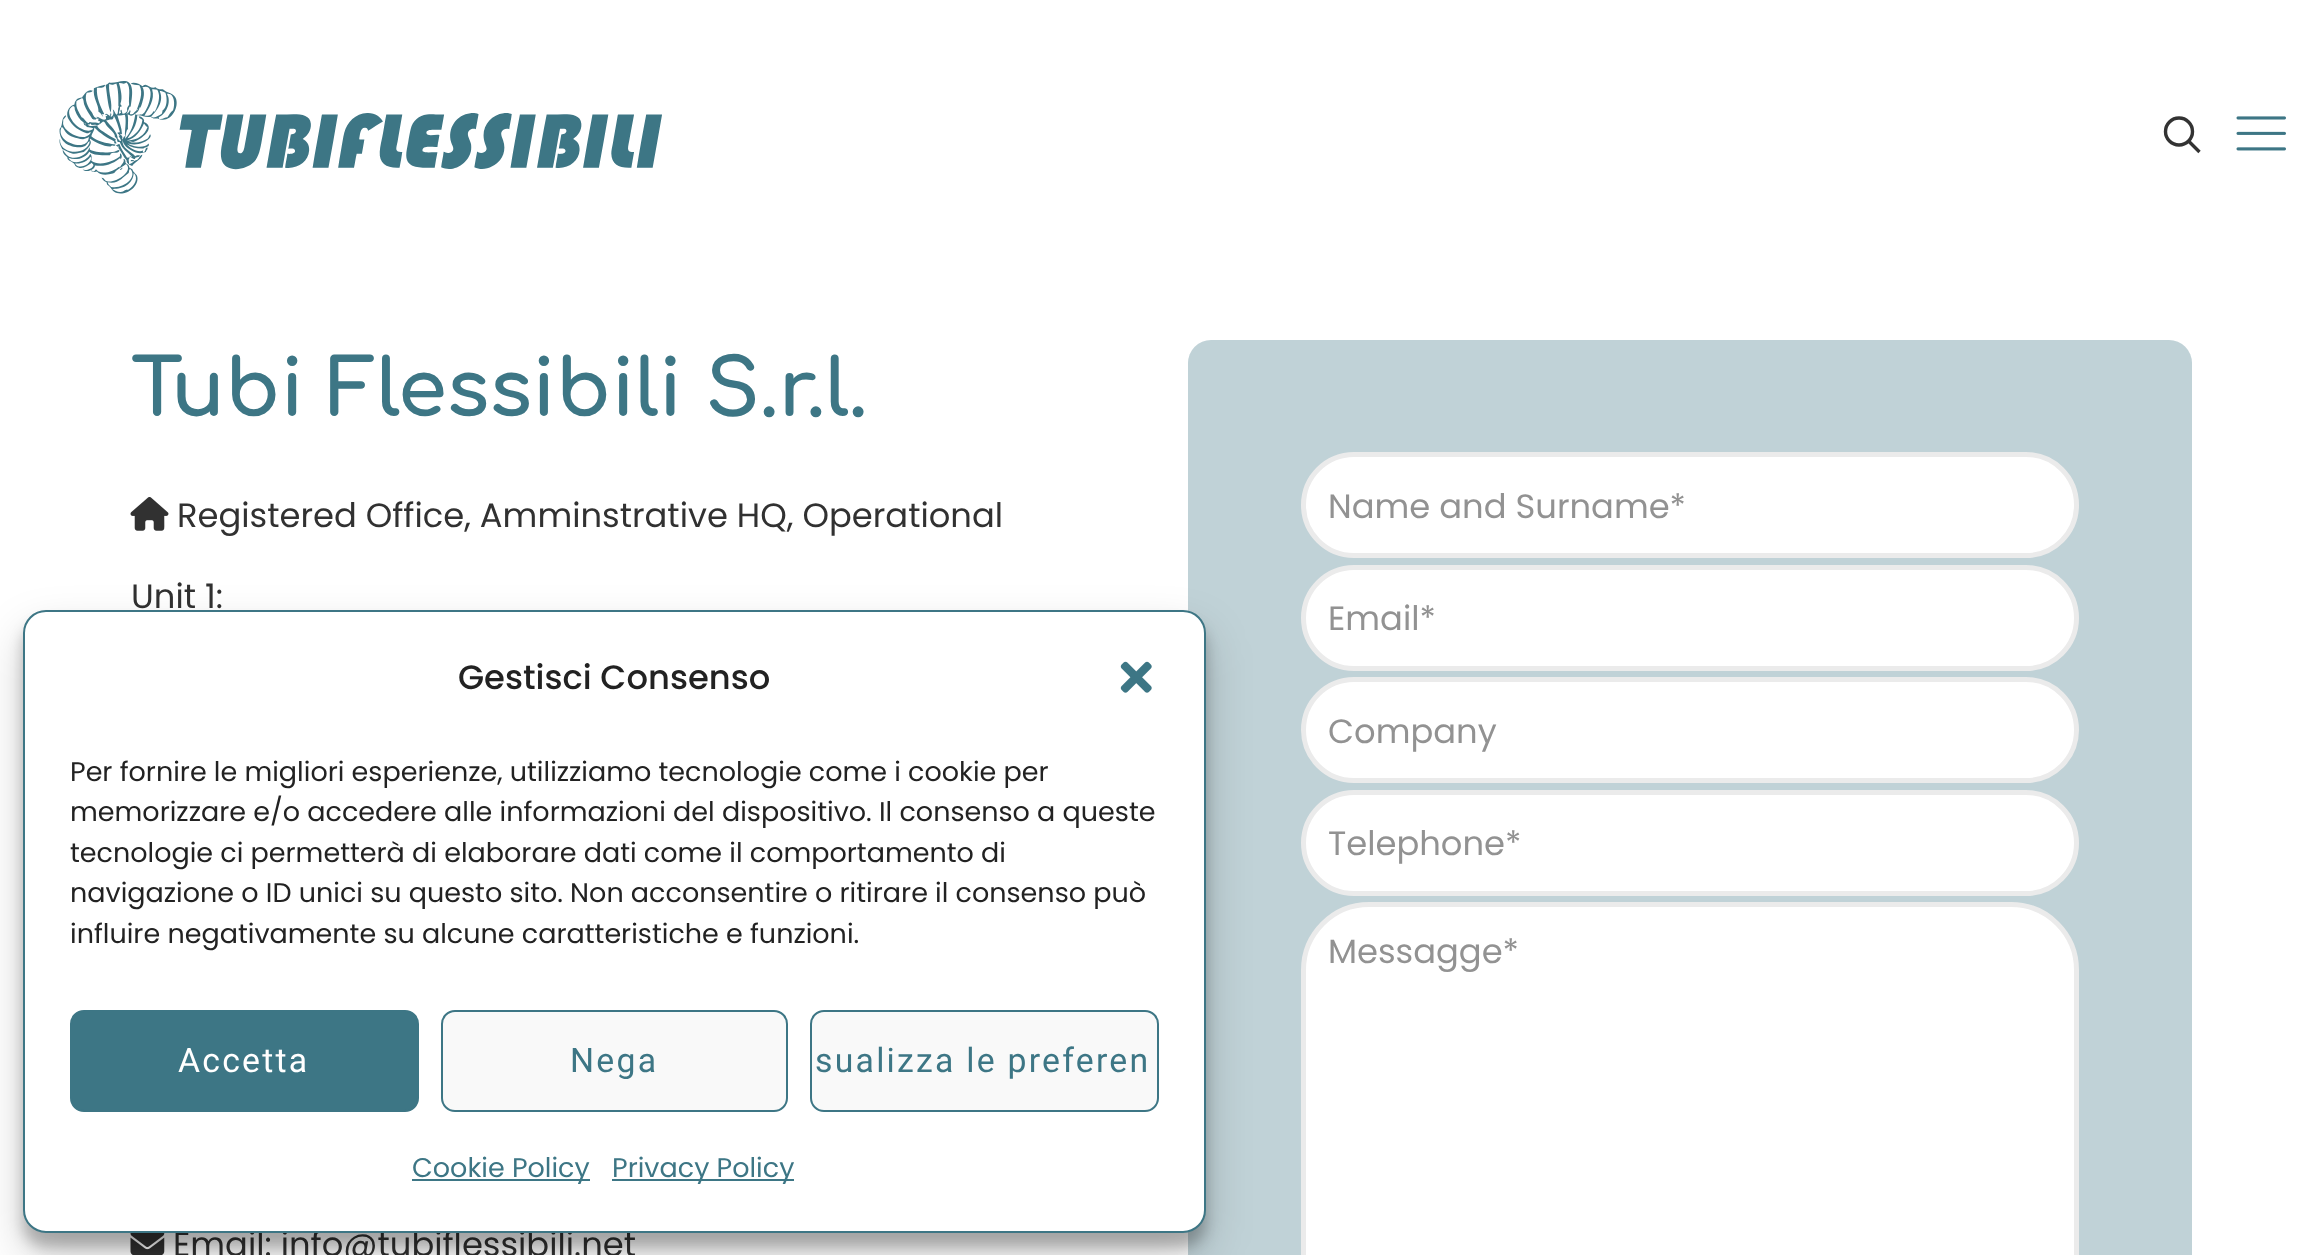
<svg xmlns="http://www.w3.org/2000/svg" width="2321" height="1255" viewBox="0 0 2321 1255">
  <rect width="100%" height="100%" fill="rgb(255,255,255)"/>
  <image x="59" y="81" width="603" height="113" href="pic1.png"/>
  <circle cx="2179" cy="131.5" r="13.5" fill="none" stroke="rgb(51,51,51)" stroke-width="3.4"/>
  <path d="M2188.5 141L2199.5 152" fill="none" stroke="rgb(51,51,51)" stroke-width="3.4"/>
  <image x="2236" y="116" width="50" height="35" href="pic2.png"/>
  <text x="131" y="416" font-family="Comfortaa" font-size="78.75" font-weight="bold" fill="rgb(61,118,133)">Tubi Flessibili S.r.l.</text>
  <image x="130" y="497" width="39" height="34" href="pic3.png"/>
  <g font-family="Poppins" font-size="33.75" fill="rgb(49,49,49)">
    <text x="177" y="527">Registered Office, Amminstrative HQ, Operational</text>
    <text x="131" y="608">Unit 1:</text>
  </g>
  <image x="130" y="1233" width="35" height="22" href="pic4.png"/>
  <text x="173" y="1256" font-family="Poppins" font-size="33.75" fill="rgb(49,49,49)">Email: info@tubiflessibili.net</text>
  <rect x="1188" y="340" width="1004" height="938" rx="23" fill="rgb(192,210,215)"/>
  <rect x="1303.5" y="454.5" width="773" height="101" rx="50.5" fill="rgb(255,255,255)" stroke="rgb(235,235,235)" stroke-width="5"/>
  <text x="1328" y="518" font-family="Poppins" font-size="33.75" fill="rgb(146,146,146)">Name and Surname*</text>
  <rect x="1303.5" y="567.5" width="773" height="101" rx="50.5" fill="rgb(255,255,255)" stroke="rgb(235,235,235)" stroke-width="5"/>
  <text x="1328" y="630" font-family="Poppins" font-size="33.75" fill="rgb(146,146,146)">Email*</text>
  <rect x="1303.5" y="679.5" width="773" height="101" rx="50.5" fill="rgb(255,255,255)" stroke="rgb(235,235,235)" stroke-width="5"/>
  <text x="1328" y="743" font-family="Poppins" font-size="33.75" fill="rgb(146,146,146)">Company</text>
  <rect x="1303.5" y="792.5" width="773" height="101" rx="50.5" fill="rgb(255,255,255)" stroke="rgb(235,235,235)" stroke-width="5"/>
  <text x="1328" y="855" font-family="Poppins" font-size="33.75" fill="rgb(146,146,146)">Telephone*</text>
  <rect x="1303.5" y="904.5" width="773" height="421" rx="65.5" fill="rgb(255,255,255)" stroke="rgb(235,235,235)" stroke-width="5"/>
  <text x="1328" y="963" font-family="Poppins" font-size="33.75" fill="rgb(146,146,146)">Messagge*</text>
  <rect x="23" y="623" width="1183" height="624" rx="23" fill="rgba(0,0,0,0.23)" filter="blur(7px)"/>
  <rect x="23" y="632" width="1183" height="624" rx="23" fill="rgba(0,0,0,0.19)" filter="blur(22.5px)"/>
  <rect x="24" y="611" width="1181" height="621" rx="22" fill="rgb(255,255,255)" stroke="rgb(61,118,133)" stroke-width="2"/>
  <text x="458" y="689" font-family="Poppins" font-size="33.75" font-weight="500" fill="rgb(34,34,34)">Gestisci Consenso</text>
  <image x="1120" y="661" width="32" height="32" href="pic5.png"/>
  <g font-family="Poppins" font-size="27" fill="rgb(34,34,34)">
    <text>
      <tspan x="70" y="781">Per fornire le migliori esperienze, utilizziamo tecnologie come i cookie per</tspan>
      <tspan x="70" y="821">memorizzare e/o accedere alle informazioni del dispositivo. Il consenso a queste</tspan>
      <tspan x="70" y="862">tecnologie ci permetterà di elaborare dati come il comportamento di</tspan>
      <tspan x="70" y="902">navigazione o ID unici su questo sito. Non acconsentire o ritirare il consenso può</tspan>
      <tspan x="70" y="943">influire negativamente su alcune caratteristiche e funzioni.</tspan>
    </text>
  </g>
  <rect x="71" y="1011" width="347" height="100" rx="13" fill="rgb(61,118,133)" stroke="rgb(61,118,133)" stroke-width="2"/>
  <text x="178" y="1072" font-family="Roboto" font-size="33.75" letter-spacing="2.25" fill="rgb(255,255,255)">Accetta</text>
  <rect x="442" y="1011" width="345" height="100" rx="13" fill="rgb(249,249,249)" stroke="rgb(61,118,133)" stroke-width="2"/>
  <text x="570" y="1072" font-family="Roboto" font-size="33.75" letter-spacing="2.25" fill="rgb(61,118,133)">Nega</text>
  <rect x="811" y="1011" width="347" height="100" rx="13" fill="rgb(249,249,249)" stroke="rgb(61,118,133)" stroke-width="2"/>
  <text x="815" y="1072" font-family="Roboto" font-size="33.75" letter-spacing="2.25" fill="rgb(61,118,133)">sualizza le preferen</text>
  <rect x="412" y="1179" width="178" height="2" fill="rgb(61,118,133)"/>
  <text x="412" y="1177" font-family="Poppins" font-size="27" fill="rgb(61,118,133)">Cookie Policy</text>
  <rect x="612" y="1179" width="182" height="2" fill="rgb(61,118,133)"/>
  <text x="612" y="1177" font-family="Poppins" font-size="27" fill="rgb(61,118,133)">Privacy Policy</text>
</svg>
